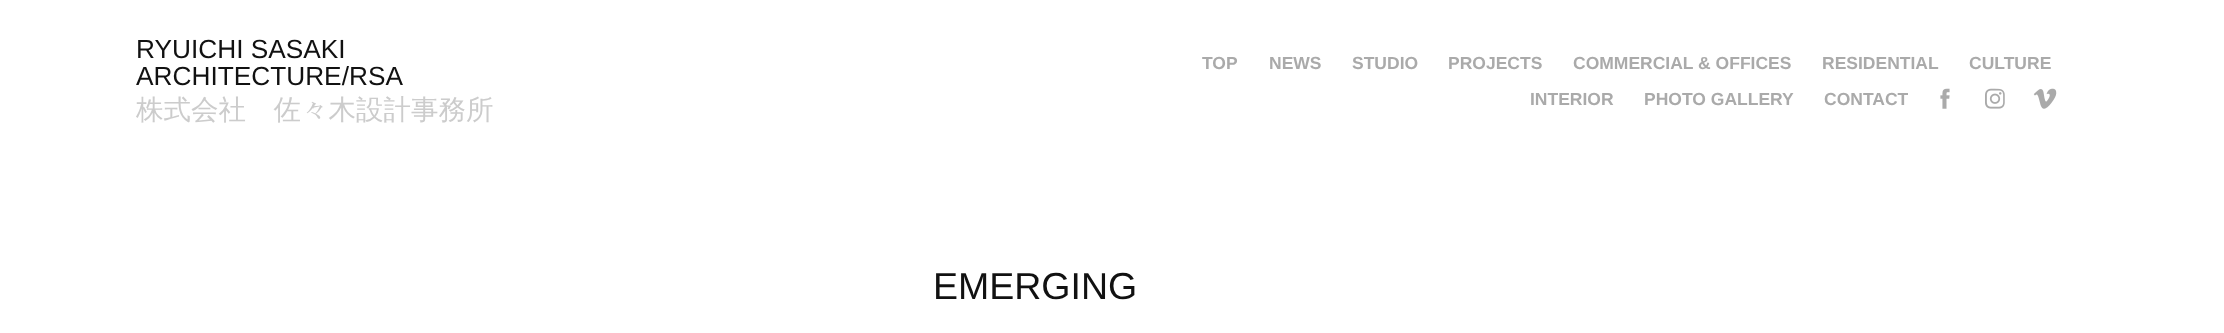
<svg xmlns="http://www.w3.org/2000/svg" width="2224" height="333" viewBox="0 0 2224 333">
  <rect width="100%" height="100%" fill="rgb(255,255,255)"/>
  <g font-family="Liberation Sans" font-size="26.25" fill="rgb(17,17,17)">
    <text>
      <tspan x="136" y="58">RYUICHI SASAKI</tspan>
      <tspan x="136" y="85">ARCHITECTURE/RSA</tspan>
    </text>
  </g>
  <text x="136" y="119" font-family="WenQuanYi Zen Hei" font-size="27.5" font-weight="500" fill="rgb(204,204,204)">株式会社　佐々木設計事務所</text>
  <g font-family="Liberation Sans" font-size="17.5" font-weight="bold" fill="rgb(170,170,170)">
    <text x="1202" y="69">TOP</text>
    <text x="1269" y="69">NEWS</text>
    <text x="1352" y="69">STUDIO</text>
    <text x="1448" y="69">PROJECTS</text>
    <text x="1573" y="69">COMMERCIAL &amp; OFFICES</text>
    <text x="1822" y="69">RESIDENTIAL</text>
    <text x="1969" y="69">CULTURE</text>
    <text x="1530" y="105">INTERIOR</text>
    <text x="1644" y="105">PHOTO GALLERY</text>
    <text x="1824" y="105">CONTACT</text>
  </g>
  <image x="1940" y="88" width="10" height="21" href="pic1.png"/>
  <image x="1985" y="88" width="20" height="21" href="pic2.png"/>
  <image x="2033" y="88" width="24" height="21" href="pic3.png"/>
  <text x="933" y="299" font-family="Liberation Sans" font-size="37.5" fill="rgb(17,17,17)">EMERGING</text>
</svg>
